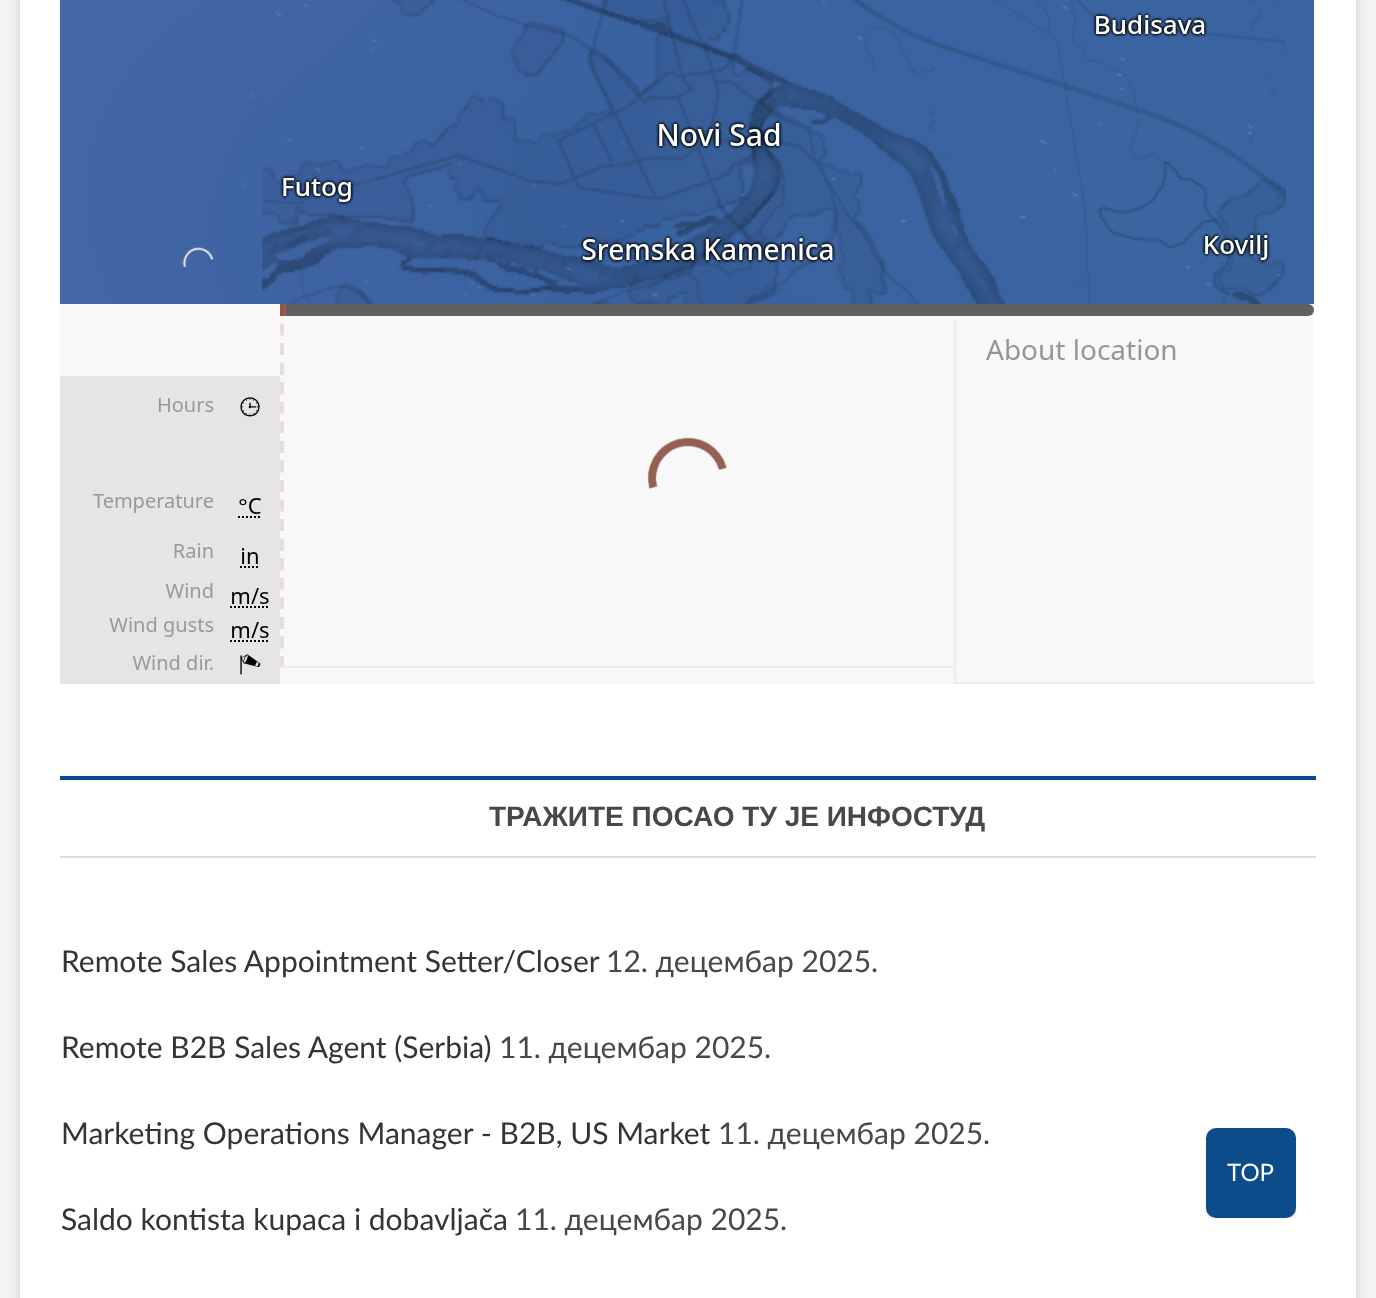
<svg xmlns="http://www.w3.org/2000/svg" width="1376" height="1298" viewBox="0 0 1376 1298">
  <defs>
    <clipPath id="clip1"><rect x="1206" y="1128" width="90" height="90"/></clipPath>
  </defs>
  <rect width="100%" height="100%" fill="rgb(244,244,244)"/>
  <rect x="20" y="-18" width="1336" height="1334" fill="rgba(0,0,0,0.15)" filter="blur(6px)"/>
  <rect x="20" y="0" width="1336" height="1298" fill="rgb(255,255,255)"/>
  <image x="60" y="0" width="1254" height="684" href="pic1.png"/>
  <rect x="60" y="776" width="1256" height="4" fill="rgb(12,76,138)"/>
  <rect x="60" y="856" width="1256" height="2" fill="rgb(221,221,221)"/>
  <text x="489" y="826" font-family="Liberation Sans" font-size="28" font-weight="bold" fill="rgb(72,72,72)">ТРАЖИТЕ ПОСАО ТУ ЈЕ ИНФОСТУД</text>
  <text x="61" y="972" font-family="Lato" font-size="30" fill="rgb(52,52,52)">Remote Sales Appointment Setter/Closer</text>
  <text x="606" y="972" font-family="Lato" font-size="30" fill="rgb(72,72,72)">12. децембар 2025.</text>
  <text x="61" y="1058" font-family="Lato" font-size="30" fill="rgb(52,52,52)">Remote B2B Sales Agent (Serbia)</text>
  <text x="499" y="1058" font-family="Lato" font-size="30" fill="rgb(72,72,72)">11. децембар 2025.</text>
  <text x="61" y="1144" font-family="Lato" font-size="30" fill="rgb(52,52,52)">Marketing Operations Manager - B2B, US Market</text>
  <text x="718" y="1144" font-family="Lato" font-size="30" fill="rgb(72,72,72)">11. децембар 2025.</text>
  <text x="61" y="1230" font-family="Lato" font-size="30" fill="rgb(52,52,52)">Saldo kontista kupaca i dobavljača</text>
  <text x="515" y="1230" font-family="Lato" font-size="30" fill="rgb(72,72,72)">11. децембар 2025.</text>
  <g clip-path="url(#clip1)">
    <rect x="1206" y="1132" width="90" height="90" rx="10" fill="rgba(0,0,0,0.08)" filter="blur(3px)"/>
  </g>
  <rect x="1206" y="1128" width="90" height="90" rx="10" fill="rgb(12,76,138)"/>
  <text x="1227" y="1181" font-family="Lato" font-size="24" fill="rgb(255,255,255)">TOP</text>
</svg>
